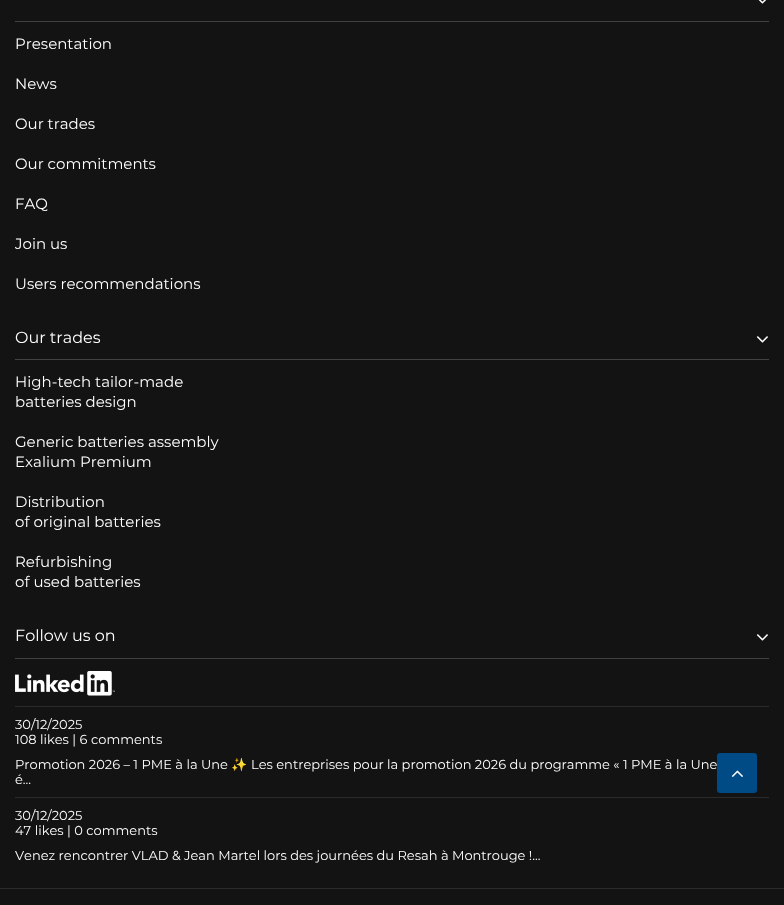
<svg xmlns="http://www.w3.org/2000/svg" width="784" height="905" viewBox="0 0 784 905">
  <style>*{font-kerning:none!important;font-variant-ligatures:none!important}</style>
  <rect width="100%" height="100%" fill="rgb(19,19,19)"/>
  <rect x="15" y="21" width="754" height="1" fill="rgb(66,66,66)"/>
  <image x="758" y="0" width="9" height="4" href="pic1.png"/>
  <g font-family="Montserrat" font-size="15" fill="rgb(255,255,255)">
    <text x="15" y="49">Presentation</text>
    <text x="15" y="89">News</text>
    <text x="15" y="129">Our trades</text>
    <text x="15" y="169">Our commitments</text>
    <text x="15" y="209">FAQ</text>
    <text x="15" y="249">Join us</text>
    <text x="15" y="289">Users recommendations</text>
  </g>
  <rect x="15" y="359" width="754" height="1" fill="rgb(66,66,66)"/>
  <text x="15" y="343" font-family="Montserrat" font-size="16" fill="rgb(255,255,255)">Our trades</text>
  <image x="756" y="336" width="12" height="7" href="pic2.png"/>
  <g font-family="Montserrat" font-size="15" fill="rgb(255,255,255)">
    <text>
      <tspan x="15" y="387">High-tech tailor-made</tspan>
      <tspan x="15" y="407">batteries design</tspan>
    </text>
    <text>
      <tspan x="15" y="447">Generic batteries assembly</tspan>
      <tspan x="15" y="467">Exalium Premium</tspan>
    </text>
    <text>
      <tspan x="15" y="507">Distribution</tspan>
      <tspan x="15" y="527">of original batteries</tspan>
    </text>
    <text>
      <tspan x="15" y="567">Refurbishing</tspan>
      <tspan x="15" y="587">of used batteries</tspan>
    </text>
  </g>
  <rect x="15" y="658" width="754" height="1" fill="rgb(66,66,66)"/>
  <text x="15" y="641" font-family="Montserrat" font-size="16" fill="rgb(255,255,255)">Follow us on</text>
  <image x="756" y="634" width="12" height="7" href="pic2.png"/>
  <image x="15" y="671" width="100" height="25" href="pic3.png"/>
  <rect x="15" y="706" width="754" height="1" fill="rgb(43,43,43)"/>
  <g font-family="Montserrat" font-size="13" fill="rgb(255,255,255)">
    <text>
      <tspan x="15" y="729">30/12/2025</tspan>
      <tspan x="15" y="744">108 likes | 6 comments</tspan>
      <tspan x="15" y="769">Promotion 2026 – 1 PME à la Une</tspan>
    </text>
  </g>
  <text x="231" y="769" font-family="Noto Color Emoji" font-size="13" fill="rgb(255,255,255)">✨</text>
  <g font-family="Montserrat" font-size="13" fill="rgb(255,255,255)">
    <text x="251" y="769">Les entreprises pour la promotion 2026 du programme « 1 PME à la Une</text>
    <text x="15" y="784">é...</text>
  </g>
  <rect x="15" y="797" width="754" height="1" fill="rgb(43,43,43)"/>
  <g font-family="Montserrat" font-size="13" fill="rgb(255,255,255)">
    <text>
      <tspan x="15" y="820">30/12/2025</tspan>
      <tspan x="15" y="835">47 likes | 0 comments</tspan>
      <tspan x="15" y="860">Venez rencontrer VLAD &amp; Jean Martel lors des journées du Resah à Montrouge !...</tspan>
    </text>
  </g>
  <rect x="717" y="753" width="40" height="40" rx="3" fill="rgb(0,74,133)"/>
  <image x="731" y="770" width="12" height="7" href="pic4.png"/>
  <rect x="0" y="888" width="784" height="1" fill="rgb(43,43,43)"/>
</svg>
